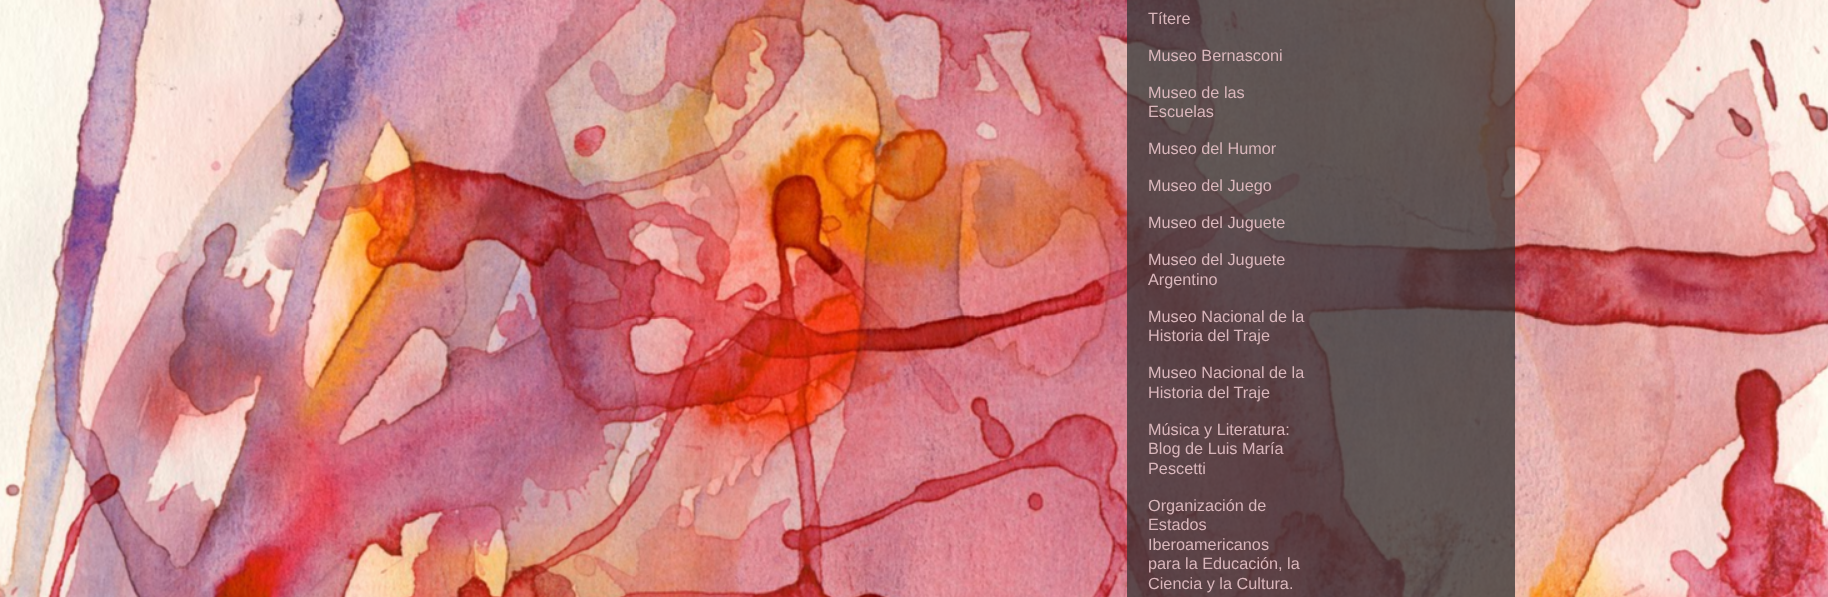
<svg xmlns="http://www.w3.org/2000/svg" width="1828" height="597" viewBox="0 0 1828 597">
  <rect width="100%" height="100%" fill="rgb(255,255,255)"/>
  <image x="0" y="0" width="1828" height="597" href="pic1.png"/>
  <rect x="1127" y="0" width="388" height="597" fill="rgba(51,51,51,0.75)"/>
  <g font-family="Liberation Sans" font-size="16.25" fill="rgb(218,183,188)">
    <text x="1148" y="24">Títere</text>
    <text x="1148" y="61">Museo Bernasconi</text>
    <text>
      <tspan x="1148" y="98">Museo de las</tspan>
      <tspan x="1148" y="117">Escuelas</tspan>
    </text>
    <text x="1148" y="154">Museo del Humor</text>
    <text x="1148" y="191">Museo del Juego</text>
    <text x="1148" y="228">Museo del Juguete</text>
    <text>
      <tspan x="1148" y="265">Museo del Juguete</tspan>
      <tspan x="1148" y="285">Argentino</tspan>
    </text>
    <text>
      <tspan x="1148" y="322">Museo Nacional de la</tspan>
      <tspan x="1148" y="341">Historia del Traje</tspan>
    </text>
    <text>
      <tspan x="1148" y="378">Museo Nacional de la</tspan>
      <tspan x="1148" y="398">Historia del Traje</tspan>
    </text>
    <text>
      <tspan x="1148" y="435">Música y Literatura:</tspan>
      <tspan x="1148" y="454">Blog de Luis María</tspan>
      <tspan x="1148" y="474">Pescetti</tspan>
    </text>
    <text>
      <tspan x="1148" y="511">Organización de</tspan>
      <tspan x="1148" y="530">Estados</tspan>
      <tspan x="1148" y="550">Iberoamericanos</tspan>
      <tspan x="1148" y="569">para la Educación, la</tspan>
      <tspan x="1148" y="589">Ciencia y la Cultura.</tspan>
    </text>
  </g>
</svg>
